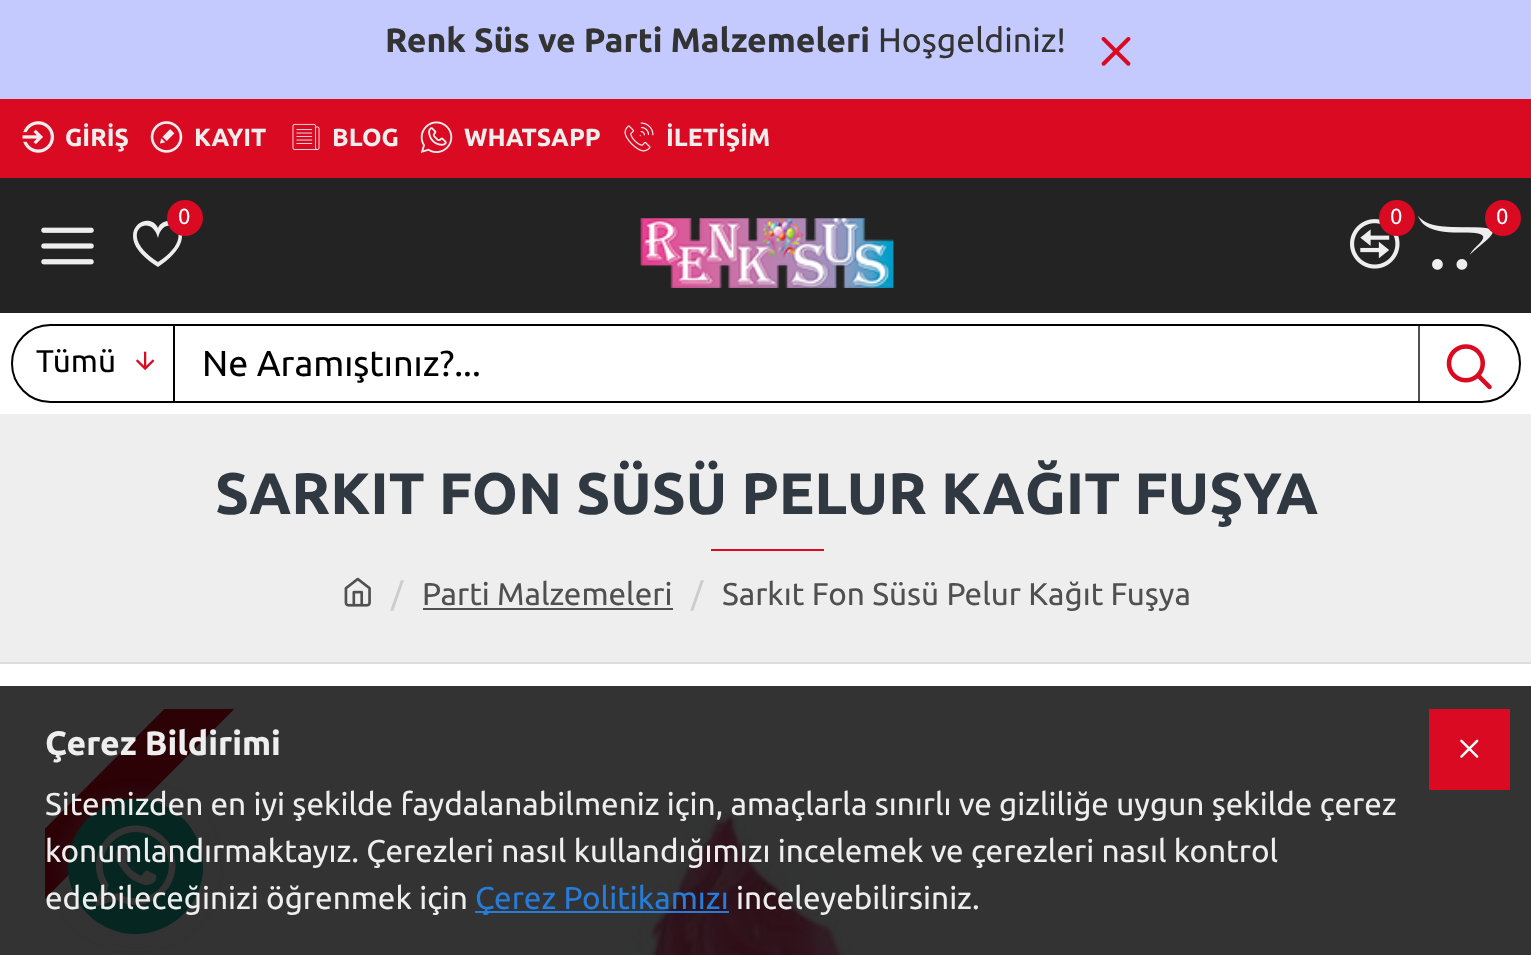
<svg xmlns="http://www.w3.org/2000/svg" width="1531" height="955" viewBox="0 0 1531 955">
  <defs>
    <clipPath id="clip1"><rect x="45" y="709" width="1442" height="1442"/></clipPath>
  </defs>
  <rect width="100%" height="100%" fill="rgb(255,255,255)"/>
  <rect x="0" y="686" width="1531" height="269" fill="rgb(51,51,51)"/>
  <rect x="0" y="0" width="1531" height="99" fill="rgb(196,202,253)"/>
  <text x="385" y="52" font-family="Ubuntu" font-size="33.75" font-weight="bold" fill="rgb(51,51,51)">Renk Süs ve Parti Malzemeleri</text>
  <text x="878" y="52" font-family="Ubuntu" font-size="33.75" fill="rgb(51,51,51)">Hoşgeldiniz!</text>
  <image x="1101" y="37" width="30" height="29" href="pic1.png"/>
  <rect x="0" y="99" width="1531" height="79" fill="rgb(218,10,34)"/>
  <image x="22" y="121" width="32" height="32" href="pic2.png"/>
  <text x="65" y="146" font-family="Ubuntu" font-size="24.75" font-weight="bold" fill="rgb(238,238,238)">GİRİŞ</text>
  <image x="150" y="121" width="33" height="32" href="pic3.png"/>
  <text x="194" y="146" font-family="Ubuntu" font-size="24.75" font-weight="bold" fill="rgb(238,238,238)">KAYIT</text>
  <image x="292" y="123" width="28" height="27" href="pic4.png"/>
  <text x="332" y="146" font-family="Ubuntu" font-size="24.75" font-weight="bold" fill="rgb(238,238,238)">BLOG</text>
  <image x="420" y="121" width="33" height="32" href="pic5.png"/>
  <text x="464" y="146" font-family="Ubuntu" font-size="24.75" font-weight="bold" fill="rgb(238,238,238)">WHATSAPP</text>
  <image x="624" y="122" width="30" height="30" href="pic6.png"/>
  <text x="666" y="146" font-family="Ubuntu" font-size="24.75" font-weight="bold" fill="rgb(238,238,238)">İLETİŞİM</text>
  <rect x="0" y="178" width="1531" height="135" fill="rgb(35,35,35)"/>
  <image x="41" y="227" width="53" height="38" href="pic7.png"/>
  <path d="M158 238C164 210 201 234 158 262C114 234 151 210 158 238ZM133 236C133 249 147 260 158 267C168 260 182 249 182 236C182 232 182 229 180 227C174 219 162 219 158 228C152 215 133 221 133 236Z" fill="rgb(238,238,238)"/>
  <circle cx="185" cy="218" r="18" fill="rgb(218,10,34)"/>
  <text x="178" y="224" font-family="Ubuntu" font-size="22" fill="rgb(255,255,255)">0</text>
  <image x="640" y="218" width="254" height="70" href="pic8.png"/>
  <image x="1350" y="219" width="50" height="50" href="pic9.png"/>
  <circle cx="1397" cy="218" r="18" fill="rgb(218,10,34)"/>
  <text x="1390" y="224" font-family="Ubuntu" font-size="22" fill="rgb(255,255,255)">0</text>
  <image x="1417" y="215" width="76" height="55" href="pic10.png"/>
  <circle cx="1503" cy="218" r="18" fill="rgb(218,10,34)"/>
  <text x="1496" y="224" font-family="Ubuntu" font-size="22" fill="rgb(255,255,255)">0</text>
  <rect x="12" y="325" width="1508" height="77" rx="38.5" fill="none" stroke="rgb(0,0,0)" stroke-width="2"/>
  <rect x="173" y="326" width="2" height="75" fill="rgb(0,0,0)"/>
  <text x="36" y="372" font-family="Ubuntu" font-size="31.5" fill="rgb(0,0,0)">Tümü</text>
  <image x="136" y="351" width="19" height="20" href="pic11.png"/>
  <text x="202" y="376" font-family="Ubuntu" font-size="36" fill="rgb(0,0,0)">Ne Aramıştınız?...</text>
  <rect x="1418" y="326" width="2" height="75" fill="rgb(80,80,80)"/>
  <image x="1446" y="344" width="46" height="46" href="pic12.png"/>
  <rect x="0" y="414" width="1531" height="248" fill="rgb(238,238,238)"/>
  <text x="215" y="514" font-family="Ubuntu" font-size="58.5" font-weight="bold" fill="rgb(48,56,65)">SARKIT FON SÜSÜ PELUR KAĞIT FUŞYA</text>
  <rect x="711" y="549" width="113" height="2" fill="rgb(218,10,34)"/>
  <rect x="0" y="662" width="1531" height="2" fill="rgb(221,221,221)"/>
  <image x="344" y="577" width="27" height="30" href="pic13.png"/>
  <text x="391" y="605" font-family="Ubuntu" font-size="31.5" fill="rgb(204,204,204)">/</text>
  <text x="422" y="605" font-family="Ubuntu" font-size="31.5" fill="rgb(80,80,80)">Parti Malzemeleri</text>
  <rect x="423" y="608" width="250" height="2" fill="rgb(80,80,80)"/>
  <text x="691" y="605" font-family="Ubuntu" font-size="31.5" fill="rgb(204,204,204)">/</text>
  <text x="722" y="605" font-family="Ubuntu" font-size="31.5" fill="rgb(80,80,80)">Sarkıt Fon Süsü Pelur Kağıt Fuşya</text>
  <g clip-path="url(#clip1)">
    <path d="M-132 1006L345 528L380 563L-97 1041Z" fill="rgb(44,2,7)"/>
  </g>
  <image x="632" y="803" width="221" height="152" href="pic14.png"/>
  <text x="45" y="755" font-family="Ubuntu" font-size="33.75" font-weight="bold" fill="rgb(238,238,238)">Çerez Bildirimi</text>
  <rect x="65" y="797" width="140" height="139" rx="69.5" fill="rgba(51,51,51,0.3)" filter="blur(9px)"/>
  <circle cx="135.5" cy="866.5" r="67.5" fill="rgb(6,38,33)"/>
  <text x="45" y="815" font-family="Ubuntu" font-size="31.5" fill="rgb(238,238,238)">Sitemizden en iyi şekilde faydalanabilmeniz için, amaçlarla sınırlı ve gizliliğe uygun şekilde çerez</text>
  <image x="94" y="825" width="82" height="82" href="pic16.png"/>
  <g font-family="Ubuntu" font-size="31.5" fill="rgb(238,238,238)">
    <text>
      <tspan x="45" y="862">konumlandırmaktayız. Çerezleri nasıl kullandığımızı incelemek ve çerezleri nasıl kontrol</tspan>
      <tspan x="45" y="909">edebileceğinizi öğrenmek için</tspan>
    </text>
  </g>
  <rect x="475" y="911" width="254" height="2" fill="rgb(39,124,217)"/>
  <text x="475" y="909" font-family="Ubuntu" font-size="31.5" fill="rgb(39,124,217)">Çerez Politikamızı</text>
  <text x="736" y="909" font-family="Ubuntu" font-size="31.5" fill="rgb(238,238,238)">inceleyebilirsiniz.</text>
  <rect x="1429" y="709" width="81" height="81" fill="rgb(218,10,34)"/>
  <image x="1460" y="739" width="19" height="19" href="pic15.png"/>
</svg>
